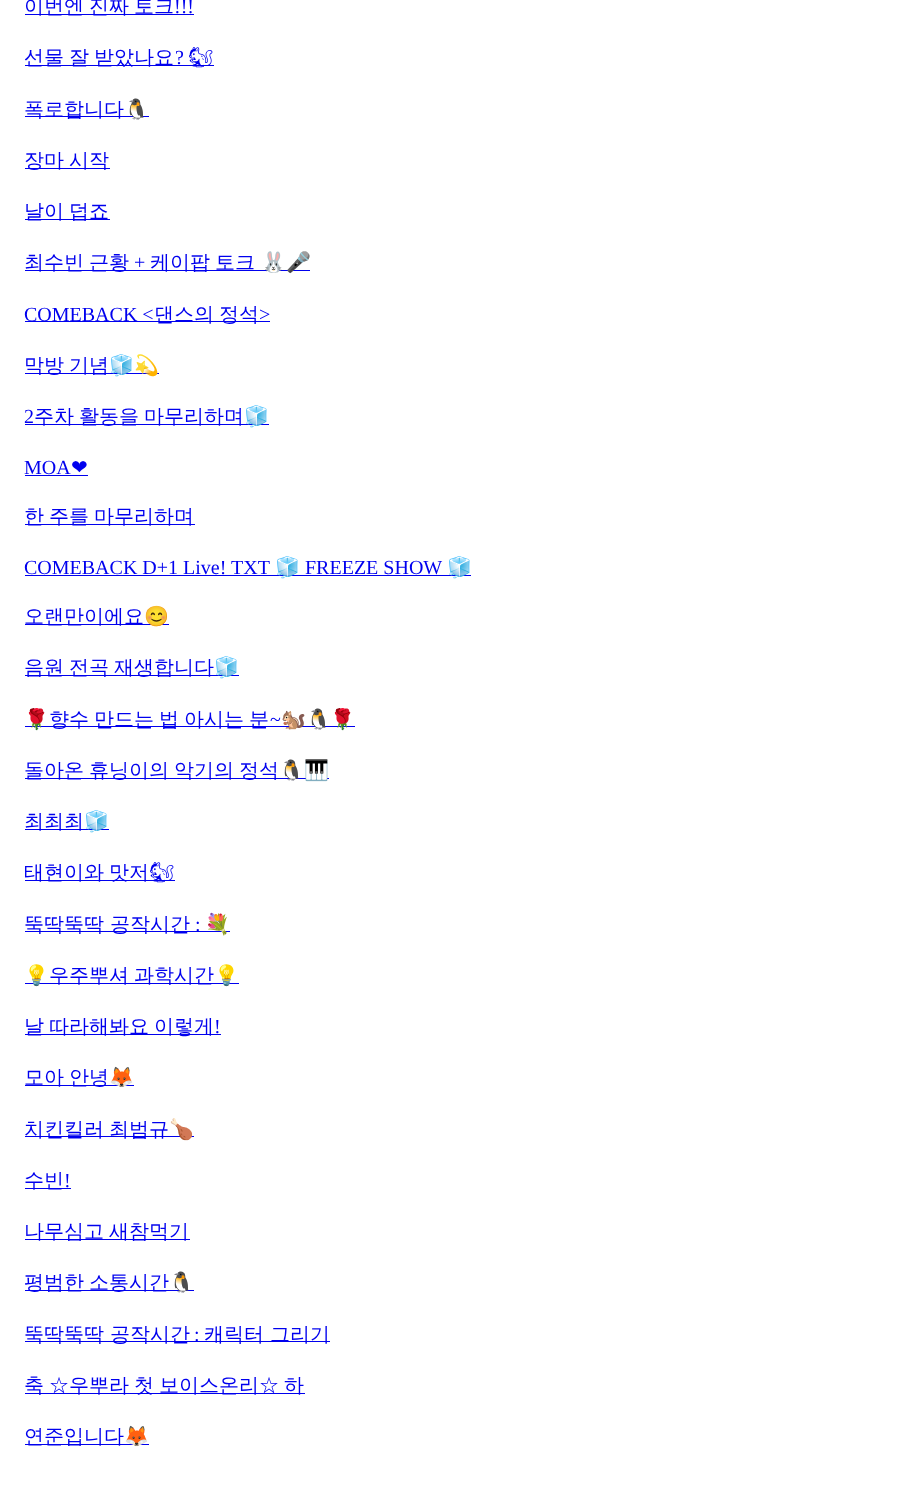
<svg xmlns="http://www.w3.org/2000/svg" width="908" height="1489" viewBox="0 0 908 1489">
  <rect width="100%" height="100%" fill="rgb(255,255,255)"/>
  <rect x="25" y="14" width="169" height="1" fill="rgb(0,0,238)"/>
  <text x="24" y="13" word-spacing="-1" font-family="WenQuanYi Zen Hei" font-size="20" font-weight="500" fill="rgb(0,0,238)">이번엔 진짜 토크</text>
  <text x="174" y="13" font-family="Liberation Serif" font-size="20" fill="rgb(0,0,238)">!!!</text>
  <rect x="25" y="65" width="189" height="1" fill="rgb(0,0,238)"/>
  <text x="24" y="64" word-spacing="-1" font-family="WenQuanYi Zen Hei" font-size="20" font-weight="500" fill="rgb(0,0,238)">선물 잘 받았나요</text>
  <text x="175" y="64" font-family="Liberation Serif" font-size="20" fill="rgb(0,0,238)">?</text>
  <text x="188" y="64" font-family="Noto Emoji" font-size="20" fill="rgb(0,0,238)">🐿</text>
  <rect x="25" y="116" width="124" height="1" fill="rgb(0,0,238)"/>
  <text x="24" y="116" font-family="WenQuanYi Zen Hei" font-size="20" font-weight="500" fill="rgb(0,0,238)">폭로합니다</text>
  <text x="124" y="116" font-family="Noto Color Emoji" font-size="20" fill="rgb(0,0,238)">🐧</text>
  <rect x="25" y="168" width="85" height="1" fill="rgb(0,0,238)"/>
  <text x="24" y="167" word-spacing="-1" font-family="WenQuanYi Zen Hei" font-size="20" font-weight="500" fill="rgb(0,0,238)">장마 시작</text>
  <rect x="25" y="219" width="85" height="1" fill="rgb(0,0,238)"/>
  <text x="24" y="218" word-spacing="-1" font-family="WenQuanYi Zen Hei" font-size="20" font-weight="500" fill="rgb(0,0,238)">날이 덥죠</text>
  <rect x="25" y="270" width="285" height="1" fill="rgb(0,0,238)"/>
  <text x="24" y="269" word-spacing="-1" font-family="WenQuanYi Zen Hei" font-size="20" font-weight="500" fill="rgb(0,0,238)">최수빈 근황</text>
  <text x="134" y="269" font-family="Liberation Serif" font-size="20" fill="rgb(0,0,238)">+</text>
  <text x="150" y="269" word-spacing="-1" font-family="WenQuanYi Zen Hei" font-size="20" font-weight="500" fill="rgb(0,0,238)">케이팝 토크</text>
  <text x="261" y="269" font-family="Noto Color Emoji" font-size="20" fill="rgb(0,0,238)">🐰🎤</text>
  <rect x="25" y="321" width="245" height="1" fill="rgb(0,0,238)"/>
  <text x="24" y="321" font-family="Liberation Serif" font-size="20" fill="rgb(0,0,238)">COMEBACK &lt;</text>
  <g font-family="WenQuanYi Zen Hei" font-size="20" font-weight="500" fill="rgb(0,0,238)">
    <text x="154" y="321">댄스의</text>
    <text x="219" y="321">정석</text>
  </g>
  <text x="259" y="321" font-family="Liberation Serif" font-size="20" fill="rgb(0,0,238)">&gt;</text>
  <rect x="25" y="373" width="134" height="1" fill="rgb(0,0,238)"/>
  <text x="24" y="372" word-spacing="-1" font-family="WenQuanYi Zen Hei" font-size="20" font-weight="500" fill="rgb(0,0,238)">막방 기념</text>
  <text x="109" y="372" font-family="Noto Color Emoji" font-size="20" fill="rgb(0,0,238)">🧊💫</text>
  <text x="24" y="423" font-family="Liberation Serif" font-size="20" fill="rgb(0,0,238)">2</text>
  <rect x="25" y="424" width="244" height="1" fill="rgb(0,0,238)"/>
  <text x="34" y="423" word-spacing="-1" font-family="WenQuanYi Zen Hei" font-size="20" font-weight="500" fill="rgb(0,0,238)">주차 활동을 마무리하며</text>
  <text x="244" y="423" font-family="Noto Color Emoji" font-size="20" fill="rgb(0,0,238)">🧊</text>
  <text x="24" y="474" font-family="Liberation Serif" font-size="20" fill="rgb(0,0,238)">MOA</text>
  <rect x="25" y="475" width="63" height="1" fill="rgb(0,0,238)"/>
  <text x="71" y="474" font-family="DejaVu Sans" font-size="20" fill="rgb(0,0,238)">❤</text>
  <rect x="25" y="524" width="170" height="1" fill="rgb(0,0,238)"/>
  <text x="24" y="523" word-spacing="-1" font-family="WenQuanYi Zen Hei" font-size="20" font-weight="500" fill="rgb(0,0,238)">한 주를 마무리하며</text>
  <text x="24" y="574" font-family="Liberation Serif" font-size="20" fill="rgb(0,0,238)">COMEBACK D+1 Live! TXT</text>
  <rect x="25" y="575" width="446" height="1" fill="rgb(0,0,238)"/>
  <text x="275" y="574" font-family="Noto Color Emoji" font-size="20" fill="rgb(0,0,238)">🧊</text>
  <text x="305" y="574" font-family="Liberation Serif" font-size="20" fill="rgb(0,0,238)">FREEZE SHOW</text>
  <text x="447" y="574" font-family="Noto Color Emoji" font-size="20" fill="rgb(0,0,238)">🧊</text>
  <rect x="25" y="624" width="144" height="1" fill="rgb(0,0,238)"/>
  <text x="24" y="623" font-family="WenQuanYi Zen Hei" font-size="20" font-weight="500" fill="rgb(0,0,238)">오랜만이에요</text>
  <text x="144" y="623" font-family="Noto Color Emoji" font-size="20" fill="rgb(0,0,238)">😊</text>
  <rect x="25" y="675" width="214" height="1" fill="rgb(0,0,238)"/>
  <text x="24" y="674" word-spacing="-1" font-family="WenQuanYi Zen Hei" font-size="20" font-weight="500" fill="rgb(0,0,238)">음원 전곡 재생합니다</text>
  <text x="214" y="674" font-family="Noto Color Emoji" font-size="20" fill="rgb(0,0,238)">🧊</text>
  <rect x="25" y="726" width="330" height="1" fill="rgb(0,0,238)"/>
  <text x="24" y="726" font-family="Noto Color Emoji" font-size="20" fill="rgb(0,0,238)">🌹</text>
  <text x="49" y="726" word-spacing="-1" font-family="WenQuanYi Zen Hei" font-size="20" font-weight="500" fill="rgb(0,0,238)">향수 만드는 법 아시는 분</text>
  <text x="270" y="726" font-family="Liberation Serif" font-size="20" fill="rgb(0,0,238)">~</text>
  <text x="281" y="726" font-family="Noto Color Emoji" font-size="20" fill="rgb(0,0,238)">🐿🐧🌹</text>
  <rect x="25" y="778" width="304" height="1" fill="rgb(0,0,238)"/>
  <text x="24" y="777" word-spacing="-1" font-family="WenQuanYi Zen Hei" font-size="20" font-weight="500" fill="rgb(0,0,238)">돌아온 휴닝이의 악기의 정석</text>
  <text x="279" y="777" font-family="Noto Color Emoji" font-size="20" fill="rgb(0,0,238)">🐧🎹</text>
  <rect x="25" y="829" width="84" height="1" fill="rgb(0,0,238)"/>
  <text x="24" y="828" font-family="WenQuanYi Zen Hei" font-size="20" font-weight="500" fill="rgb(0,0,238)">최최최</text>
  <text x="84" y="828" font-family="Noto Color Emoji" font-size="20" fill="rgb(0,0,238)">🧊</text>
  <rect x="25" y="880" width="150" height="1" fill="rgb(0,0,238)"/>
  <text x="24" y="879" word-spacing="-1" font-family="WenQuanYi Zen Hei" font-size="20" font-weight="500" fill="rgb(0,0,238)">태현이와 맛저</text>
  <text x="149" y="879" font-family="Noto Emoji" font-size="20" fill="rgb(0,0,238)">🐿</text>
  <rect x="25" y="931" width="205" height="1" fill="rgb(0,0,238)"/>
  <text x="24" y="931" font-family="WenQuanYi Zen Hei" font-size="20" font-weight="500" fill="rgb(0,0,238)">뚝딱뚝딱 공작시간</text>
  <text x="195" y="931" font-family="Liberation Serif" font-size="20" fill="rgb(0,0,238)">:</text>
  <text x="205" y="931" font-family="Noto Color Emoji" font-size="20" fill="rgb(0,0,238)">💐</text>
  <rect x="25" y="983" width="214" height="1" fill="rgb(0,0,238)"/>
  <text x="24" y="982" font-family="Noto Color Emoji" font-size="20" fill="rgb(0,0,238)">💡</text>
  <text x="49" y="982" word-spacing="-1" font-family="WenQuanYi Zen Hei" font-size="20" font-weight="500" fill="rgb(0,0,238)">우주뿌셔 과학시간</text>
  <text x="214" y="982" font-family="Noto Color Emoji" font-size="20" fill="rgb(0,0,238)">💡</text>
  <rect x="25" y="1034" width="196" height="1" fill="rgb(0,0,238)"/>
  <text x="24" y="1033" word-spacing="-1" font-family="WenQuanYi Zen Hei" font-size="20" font-weight="500" fill="rgb(0,0,238)">날 따라해봐요 이렇게</text>
  <text x="214" y="1033" font-family="Liberation Serif" font-size="20" fill="rgb(0,0,238)">!</text>
  <rect x="25" y="1085" width="109" height="1" fill="rgb(0,0,238)"/>
  <text x="24" y="1084" word-spacing="-1" font-family="WenQuanYi Zen Hei" font-size="20" font-weight="500" fill="rgb(0,0,238)">모아 안녕</text>
  <text x="109" y="1084" font-family="Noto Color Emoji" font-size="20" fill="rgb(0,0,238)">🦊</text>
  <rect x="25" y="1136" width="169" height="1" fill="rgb(0,0,238)"/>
  <text x="24" y="1136" word-spacing="-1" font-family="WenQuanYi Zen Hei" font-size="20" font-weight="500" fill="rgb(0,0,238)">치킨킬러 최범규</text>
  <text x="169" y="1136" font-family="Noto Color Emoji" font-size="20" fill="rgb(0,0,238)">🍗</text>
  <rect x="25" y="1188" width="46" height="1" fill="rgb(0,0,238)"/>
  <text x="24" y="1187" font-family="WenQuanYi Zen Hei" font-size="20" font-weight="500" fill="rgb(0,0,238)">수빈</text>
  <text x="64" y="1187" font-family="Liberation Serif" font-size="20" fill="rgb(0,0,238)">!</text>
  <rect x="25" y="1239" width="165" height="1" fill="rgb(0,0,238)"/>
  <text x="24" y="1238" word-spacing="-1" font-family="WenQuanYi Zen Hei" font-size="20" font-weight="500" fill="rgb(0,0,238)">나무심고 새참먹기</text>
  <rect x="25" y="1290" width="169" height="1" fill="rgb(0,0,238)"/>
  <text x="24" y="1289" word-spacing="-1" font-family="WenQuanYi Zen Hei" font-size="20" font-weight="500" fill="rgb(0,0,238)">평범한 소통시간</text>
  <text x="169" y="1289" font-family="Noto Color Emoji" font-size="20" fill="rgb(0,0,238)">🐧</text>
  <rect x="25" y="1341" width="305" height="1" fill="rgb(0,0,238)"/>
  <text x="24" y="1341" font-family="WenQuanYi Zen Hei" font-size="20" font-weight="500" fill="rgb(0,0,238)">뚝딱뚝딱 공작시간</text>
  <text x="194" y="1341" font-family="Liberation Serif" font-size="20" fill="rgb(0,0,238)">:</text>
  <text x="204" y="1341" font-family="WenQuanYi Zen Hei" font-size="20" font-weight="500" fill="rgb(0,0,238)">캐릭터 그리기</text>
  <rect x="25" y="1393" width="280" height="1" fill="rgb(0,0,238)"/>
  <text x="24" y="1392" word-spacing="-1" font-family="WenQuanYi Zen Hei" font-size="20" font-weight="500" fill="rgb(0,0,238)">축 ☆우뿌라 첫 보이스온리☆ 하</text>
  <rect x="25" y="1444" width="124" height="1" fill="rgb(0,0,238)"/>
  <text x="24" y="1443" font-family="WenQuanYi Zen Hei" font-size="20" font-weight="500" fill="rgb(0,0,238)">연준입니다</text>
  <text x="124" y="1443" font-family="Noto Color Emoji" font-size="20" fill="rgb(0,0,238)">🦊</text>
</svg>
